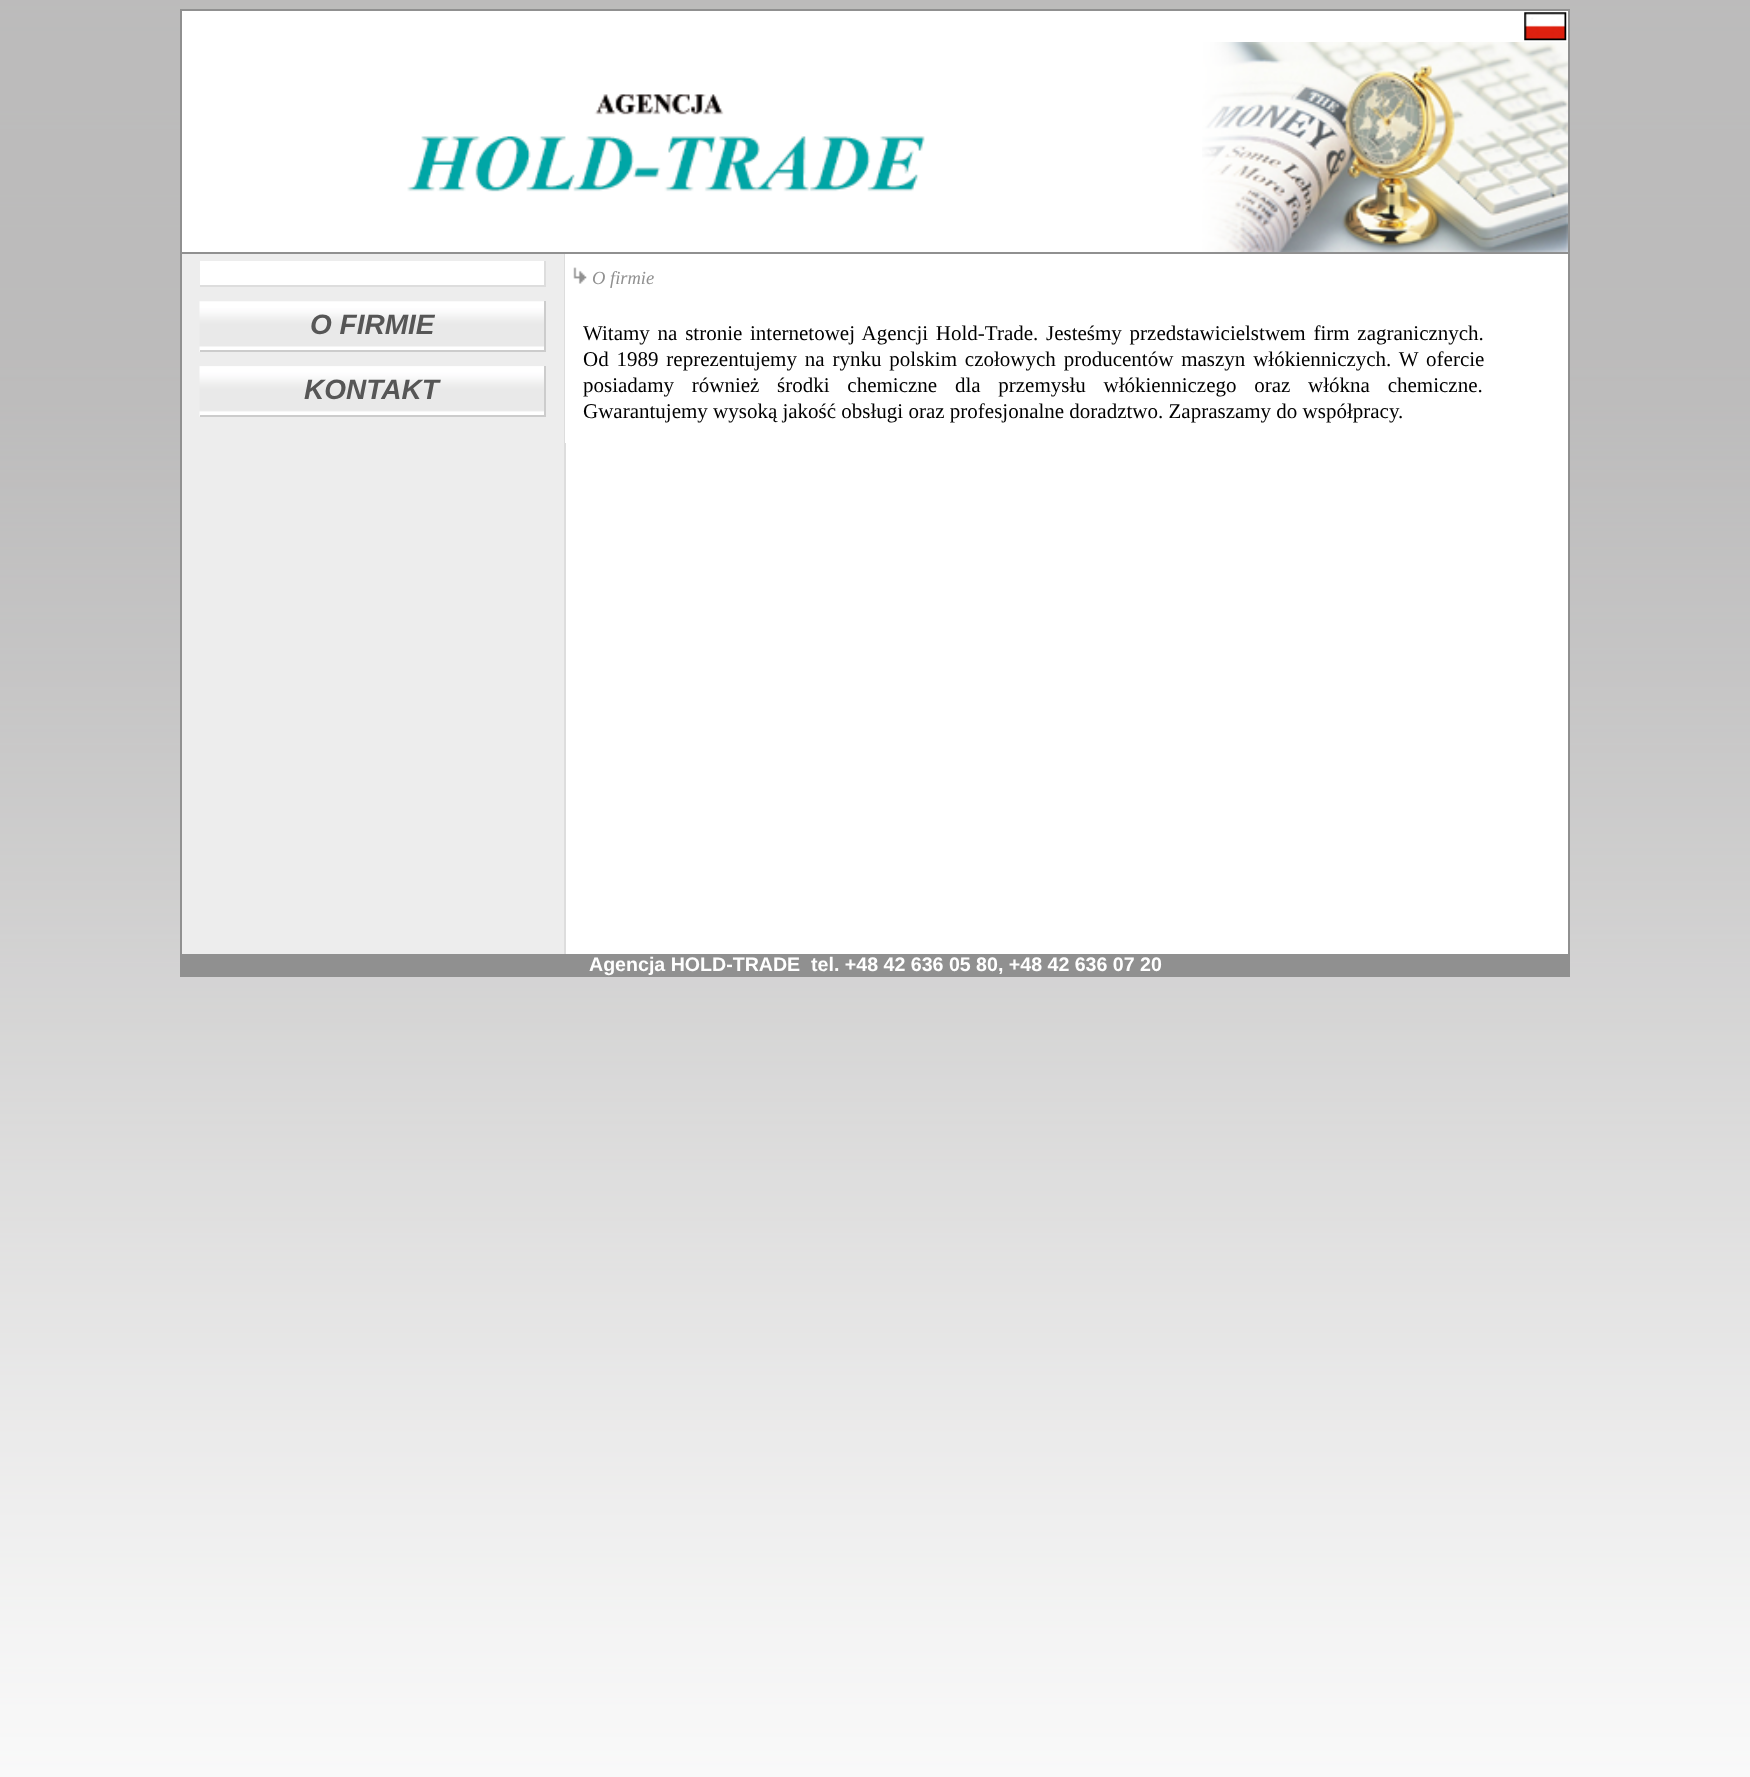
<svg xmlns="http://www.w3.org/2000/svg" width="1750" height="1777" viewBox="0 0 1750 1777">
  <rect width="100%" height="100%" fill="rgb(255,255,255)"/>
  <image x="0" y="0" width="1750" height="1777" href="pic1.png"/>
  <rect x="180" y="9" width="1390" height="968" fill="rgb(144,144,144)"/>
  <rect x="182" y="11" width="1386" height="31" fill="rgb(255,255,255)"/>
  <image x="1524" y="12" width="43" height="29" href="pic2.png"/>
  <rect x="182" y="42" width="1020" height="210" fill="rgb(255,255,255)"/>
  <image x="407" y="94" width="518" height="98" href="pic3.png"/>
  <image x="1202" y="42" width="366" height="210" href="pic4.png"/>
  <rect x="566" y="254" width="1002" height="700" fill="rgb(255,255,255)"/>
  <rect x="182" y="254" width="382" height="700" fill="rgb(237,237,237)"/>
  <rect x="564" y="254" width="2" height="700" fill="rgb(221,221,221)"/>
  <rect x="200" y="261" width="344" height="24" fill="rgb(255,255,255)"/>
  <rect x="544" y="261" width="2" height="26" fill="rgb(221,221,221)"/>
  <rect x="200" y="285" width="346" height="2" fill="rgb(221,221,221)"/>
  <image x="199" y="301" width="345" height="51" href="pic5.png"/>
  <rect x="544" y="301" width="2" height="51" fill="rgb(204,204,204)"/>
  <rect x="200" y="350" width="346" height="2" fill="rgb(204,204,204)"/>
  <text x="310" y="334" font-family="Liberation Sans" font-size="28" font-weight="bold" font-style="italic" fill="rgb(86,86,86)">O FIRMIE</text>
  <image x="199" y="366" width="345" height="51" href="pic6.png"/>
  <rect x="544" y="366" width="2" height="51" fill="rgb(204,204,204)"/>
  <rect x="200" y="415" width="346" height="2" fill="rgb(204,204,204)"/>
  <text x="304" y="399" font-family="Liberation Sans" font-size="28" font-weight="bold" font-style="italic" fill="rgb(86,86,86)">KONTAKT</text>
  <rect x="565" y="254" width="1" height="189" fill="rgb(255,255,255)"/>
  <image x="573" y="267" width="14" height="17" href="pic7.png"/>
  <text x="592" y="284" font-family="Liberation Serif" font-size="18.5" font-style="italic" fill="rgb(144,144,144)">O firmie</text>
  <g font-family="Liberation Serif" font-size="21" fill="rgb(0,0,0)">
    <text>
      <tspan x="583" y="340" word-spacing="2.5">Witamy na stronie internetowej Agencji Hold-Trade. Jesteśmy przedstawicielstwem firm zagranicznych.</tspan>
      <tspan x="583" y="366" word-spacing="2.6">Od 1989 reprezentujemy na rynku polskim czołowych producentów maszyn włókienniczych. W ofercie</tspan>
      <tspan x="583" y="392" word-spacing="12.5">posiadamy również środki chemiczne dla przemysłu włókienniczego oraz włókna chemiczne.</tspan>
      <tspan x="583" y="418">Gwarantujemy wysoką jakość obsługi oraz profesjonalne doradztwo. Zapraszamy do współpracy.</tspan>
    </text>
  </g>
  <text x="589" y="971" font-family="Liberation Sans" font-size="19.6" font-weight="bold" fill="rgb(255,255,255)" xml:space="preserve">Agencja HOLD-TRADE  tel. +48 42 636 05 80, +48 42 636 07 20</text>
</svg>
